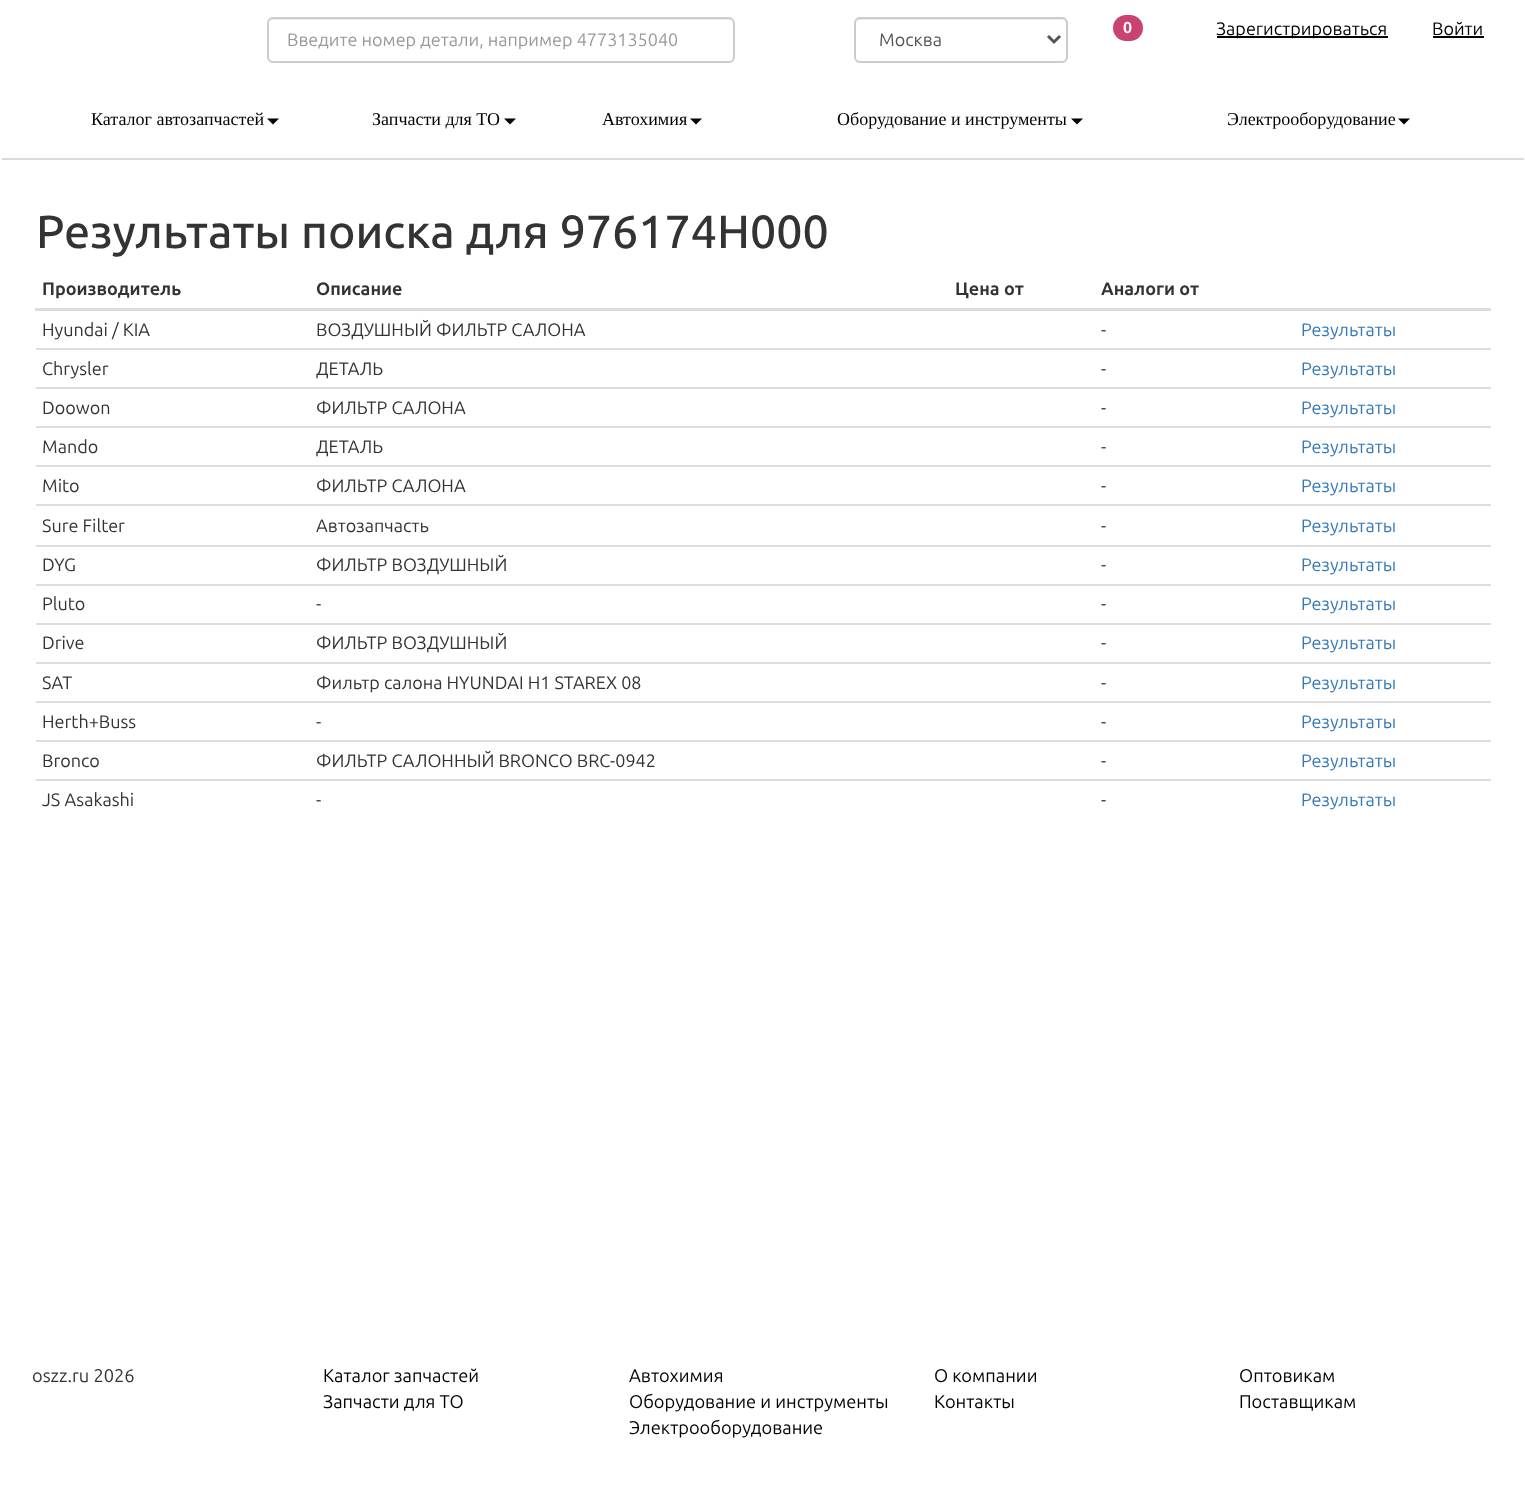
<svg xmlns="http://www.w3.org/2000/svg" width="1525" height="1494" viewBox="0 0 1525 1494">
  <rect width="100%" height="100%" fill="rgb(255,255,255)"/>
  <path d="M273 20H729C731 20 734 22 734 24V23C734 20 732 18 729 18H274C272 18 270 20 269 22C270 21 272 20 273 20Z" fill="rgb(236,236,236)"/>
  <rect x="268" y="18" width="466" height="44" rx="5" fill="none" stroke="rgb(204,204,204)" stroke-width="2"/>
  <text x="287" y="46" font-family="Ubuntu" font-size="18" fill="rgb(153,153,153)">Введите номер детали, например 4773135040</text>
  <path d="M860 20H1062C1064 20 1066 22 1066 24V58L1065 61C1066 60 1067 58 1067 57V23C1067 20 1065 18 1062 18H860C857 18 855 20 855 23V24C855 22 857 20 860 20Z" fill="rgb(236,236,236)"/>
  <rect x="855" y="18" width="212" height="44" rx="5" fill="none" stroke="rgb(204,204,204)" stroke-width="2"/>
  <path d="M1048 36L1054 42L1060 36" fill="none" stroke="rgb(85,85,85)" stroke-width="3"/>
  <text x="879" y="46" font-family="Ubuntu" font-size="18" fill="rgb(85,85,85)">Москва</text>
  <rect x="1113" y="15" width="30" height="26" rx="13" fill="rgb(202,66,111)"/>
  <text x="1123" y="33" font-family="Ubuntu" font-size="16" font-weight="bold" fill="rgb(255,255,255)">0</text>
  <rect x="1217" y="36" width="171" height="2" fill="rgb(0,0,0)"/>
  <g font-family="Ubuntu" font-size="18" fill="rgb(0,0,0)">
    <text x="1216" y="35">Зарегистрироваться</text>
    <text x="1432" y="35">Войти</text>
  </g>
  <rect x="1433" y="36" width="51" height="2" fill="rgb(0,0,0)"/>
  <text x="91" y="125" font-family="Liberation Serif" font-size="18" fill="rgb(0,0,0)">Каталог автозапчастей</text>
  <path d="M267 118.5H279L273 124.5Z" fill="rgb(0,0,0)"/>
  <text x="372" y="125" font-family="Liberation Serif" font-size="18" fill="rgb(0,0,0)">Запчасти для ТО</text>
  <path d="M504 118.5H516L510 124.5Z" fill="rgb(0,0,0)"/>
  <text x="602" y="125" font-family="Liberation Serif" font-size="18" fill="rgb(0,0,0)">Автохимия</text>
  <path d="M690 118.5H702L696 124.5Z" fill="rgb(0,0,0)"/>
  <text x="837" y="125" font-family="Liberation Serif" font-size="18" fill="rgb(0,0,0)">Оборудование и инструменты</text>
  <path d="M1071 118.5H1083L1077 124.5Z" fill="rgb(0,0,0)"/>
  <text x="1227" y="125" font-family="Liberation Serif" font-size="18" fill="rgb(0,0,0)">Электрооборудование</text>
  <path d="M1398 118.5H1410L1404 124.5Z" fill="rgb(0,0,0)"/>
  <rect x="2" y="158" width="1522" height="2" fill="rgb(219,219,219)"/>
  <text x="36" y="248" font-family="Ubuntu" font-size="46.5" font-weight="500" fill="rgb(51,51,51)">Результаты поиска для 976174H000</text>
  <g font-family="Ubuntu" font-size="18" font-weight="bold" fill="rgb(51,51,51)">
    <text x="42" y="295">Производитель</text>
    <text x="316" y="295">Описание</text>
    <text x="955" y="295">Цена от</text>
    <text x="1101" y="295">Аналоги от</text>
  </g>
  <rect x="35" y="308" width="1456" height="3" fill="rgb(221,221,221)"/>
  <g font-family="Ubuntu" font-size="18" fill="rgb(51,51,51)">
    <text x="42" y="336">Hyundai / KIA</text>
    <text x="316" y="336">ВОЗДУШНЫЙ ФИЛЬТР САЛОНА</text>
    <text x="1101" y="336">-</text>
  </g>
  <text x="1301" y="336" font-family="Ubuntu" font-size="18" fill="rgb(51,122,183)">Результаты</text>
  <g font-family="Ubuntu" font-size="18" fill="rgb(51,51,51)">
    <text x="42" y="375">Chrysler</text>
    <text x="316" y="375">ДЕТАЛЬ</text>
    <text x="1101" y="375">-</text>
  </g>
  <rect x="36" y="348" width="1455" height="2" fill="rgb(221,221,221)"/>
  <text x="1301" y="375" font-family="Ubuntu" font-size="18" fill="rgb(51,122,183)">Результаты</text>
  <g font-family="Ubuntu" font-size="18" fill="rgb(51,51,51)">
    <text x="42" y="414">Doowon</text>
    <text x="316" y="414">ФИЛЬТР САЛОНА</text>
    <text x="1101" y="414">-</text>
  </g>
  <rect x="36" y="387" width="1455" height="2" fill="rgb(221,221,221)"/>
  <text x="1301" y="414" font-family="Ubuntu" font-size="18" fill="rgb(51,122,183)">Результаты</text>
  <g font-family="Ubuntu" font-size="18" fill="rgb(51,51,51)">
    <text x="42" y="453">Mando</text>
    <text x="316" y="453">ДЕТАЛЬ</text>
    <text x="1101" y="453">-</text>
  </g>
  <rect x="36" y="426" width="1455" height="2" fill="rgb(221,221,221)"/>
  <text x="1301" y="453" font-family="Ubuntu" font-size="18" fill="rgb(51,122,183)">Результаты</text>
  <g font-family="Ubuntu" font-size="18" fill="rgb(51,51,51)">
    <text x="42" y="492">Mito</text>
    <text x="316" y="492">ФИЛЬТР САЛОНА</text>
    <text x="1101" y="492">-</text>
  </g>
  <rect x="36" y="465" width="1455" height="2" fill="rgb(221,221,221)"/>
  <text x="1301" y="492" font-family="Ubuntu" font-size="18" fill="rgb(51,122,183)">Результаты</text>
  <g font-family="Ubuntu" font-size="18" fill="rgb(51,51,51)">
    <text x="42" y="532">Sure Filter</text>
    <text x="316" y="532">Автозапчасть</text>
    <text x="1101" y="532">-</text>
  </g>
  <rect x="36" y="504" width="1455" height="2" fill="rgb(221,221,221)"/>
  <text x="1301" y="532" font-family="Ubuntu" font-size="18" fill="rgb(51,122,183)">Результаты</text>
  <g font-family="Ubuntu" font-size="18" fill="rgb(51,51,51)">
    <text x="42" y="571">DYG</text>
    <text x="316" y="571">ФИЛЬТР ВОЗДУШНЫЙ</text>
    <text x="1101" y="571">-</text>
  </g>
  <rect x="36" y="545" width="1455" height="2" fill="rgb(221,221,221)"/>
  <text x="1301" y="571" font-family="Ubuntu" font-size="18" fill="rgb(51,122,183)">Результаты</text>
  <g font-family="Ubuntu" font-size="18" fill="rgb(51,51,51)">
    <text x="42" y="610">Pluto</text>
    <text x="316" y="610">-</text>
    <text x="1101" y="610">-</text>
  </g>
  <rect x="36" y="584" width="1455" height="2" fill="rgb(221,221,221)"/>
  <text x="1301" y="610" font-family="Ubuntu" font-size="18" fill="rgb(51,122,183)">Результаты</text>
  <g font-family="Ubuntu" font-size="18" fill="rgb(51,51,51)">
    <text x="42" y="649">Drive</text>
    <text x="316" y="649">ФИЛЬТР ВОЗДУШНЫЙ</text>
    <text x="1101" y="649">-</text>
  </g>
  <rect x="36" y="623" width="1455" height="2" fill="rgb(221,221,221)"/>
  <text x="1301" y="649" font-family="Ubuntu" font-size="18" fill="rgb(51,122,183)">Результаты</text>
  <g font-family="Ubuntu" font-size="18" fill="rgb(51,51,51)">
    <text x="42" y="689">SAT</text>
    <text x="316" y="689">Фильтр салона HYUNDAI H1 STAREX 08</text>
    <text x="1101" y="689">-</text>
  </g>
  <rect x="36" y="662" width="1455" height="2" fill="rgb(221,221,221)"/>
  <text x="1301" y="689" font-family="Ubuntu" font-size="18" fill="rgb(51,122,183)">Результаты</text>
  <g font-family="Ubuntu" font-size="18" fill="rgb(51,51,51)">
    <text x="42" y="728">Herth+Buss</text>
    <text x="316" y="728">-</text>
    <text x="1101" y="728">-</text>
  </g>
  <rect x="36" y="701" width="1455" height="2" fill="rgb(221,221,221)"/>
  <text x="1301" y="728" font-family="Ubuntu" font-size="18" fill="rgb(51,122,183)">Результаты</text>
  <g font-family="Ubuntu" font-size="18" fill="rgb(51,51,51)">
    <text x="42" y="767">Bronco</text>
    <text x="316" y="767">ФИЛЬТР САЛОННЫЙ BRONCO BRC-0942</text>
    <text x="1101" y="767">-</text>
  </g>
  <rect x="36" y="740" width="1455" height="2" fill="rgb(221,221,221)"/>
  <text x="1301" y="767" font-family="Ubuntu" font-size="18" fill="rgb(51,122,183)">Результаты</text>
  <g font-family="Ubuntu" font-size="18" fill="rgb(51,51,51)">
    <text x="42" y="806">JS Asakashi</text>
    <text x="316" y="806">-</text>
    <text x="1101" y="806">-</text>
  </g>
  <rect x="36" y="779" width="1455" height="2" fill="rgb(221,221,221)"/>
  <text x="1301" y="806" font-family="Ubuntu" font-size="18" fill="rgb(51,122,183)">Результаты</text>
  <text x="32" y="1382" font-family="Ubuntu" font-size="18.25" fill="rgb(51,51,51)">oszz.ru 2026</text>
  <g font-family="Ubuntu" font-size="18.25" fill="rgb(0,0,0)">
    <text>
      <tspan x="323" y="1382">Каталог запчастей</tspan>
      <tspan x="323" y="1408">Запчасти для ТО</tspan>
    </text>
    <text>
      <tspan x="629" y="1382">Автохимия</tspan>
      <tspan x="629" y="1408">Оборудование и инструменты</tspan>
      <tspan x="629" y="1434">Электрооборудование</tspan>
    </text>
    <text>
      <tspan x="934" y="1382">О компании</tspan>
      <tspan x="934" y="1408">Контакты</tspan>
    </text>
    <text>
      <tspan x="1239" y="1382">Оптовикам</tspan>
      <tspan x="1239" y="1408">Поставщикам</tspan>
    </text>
  </g>
</svg>
